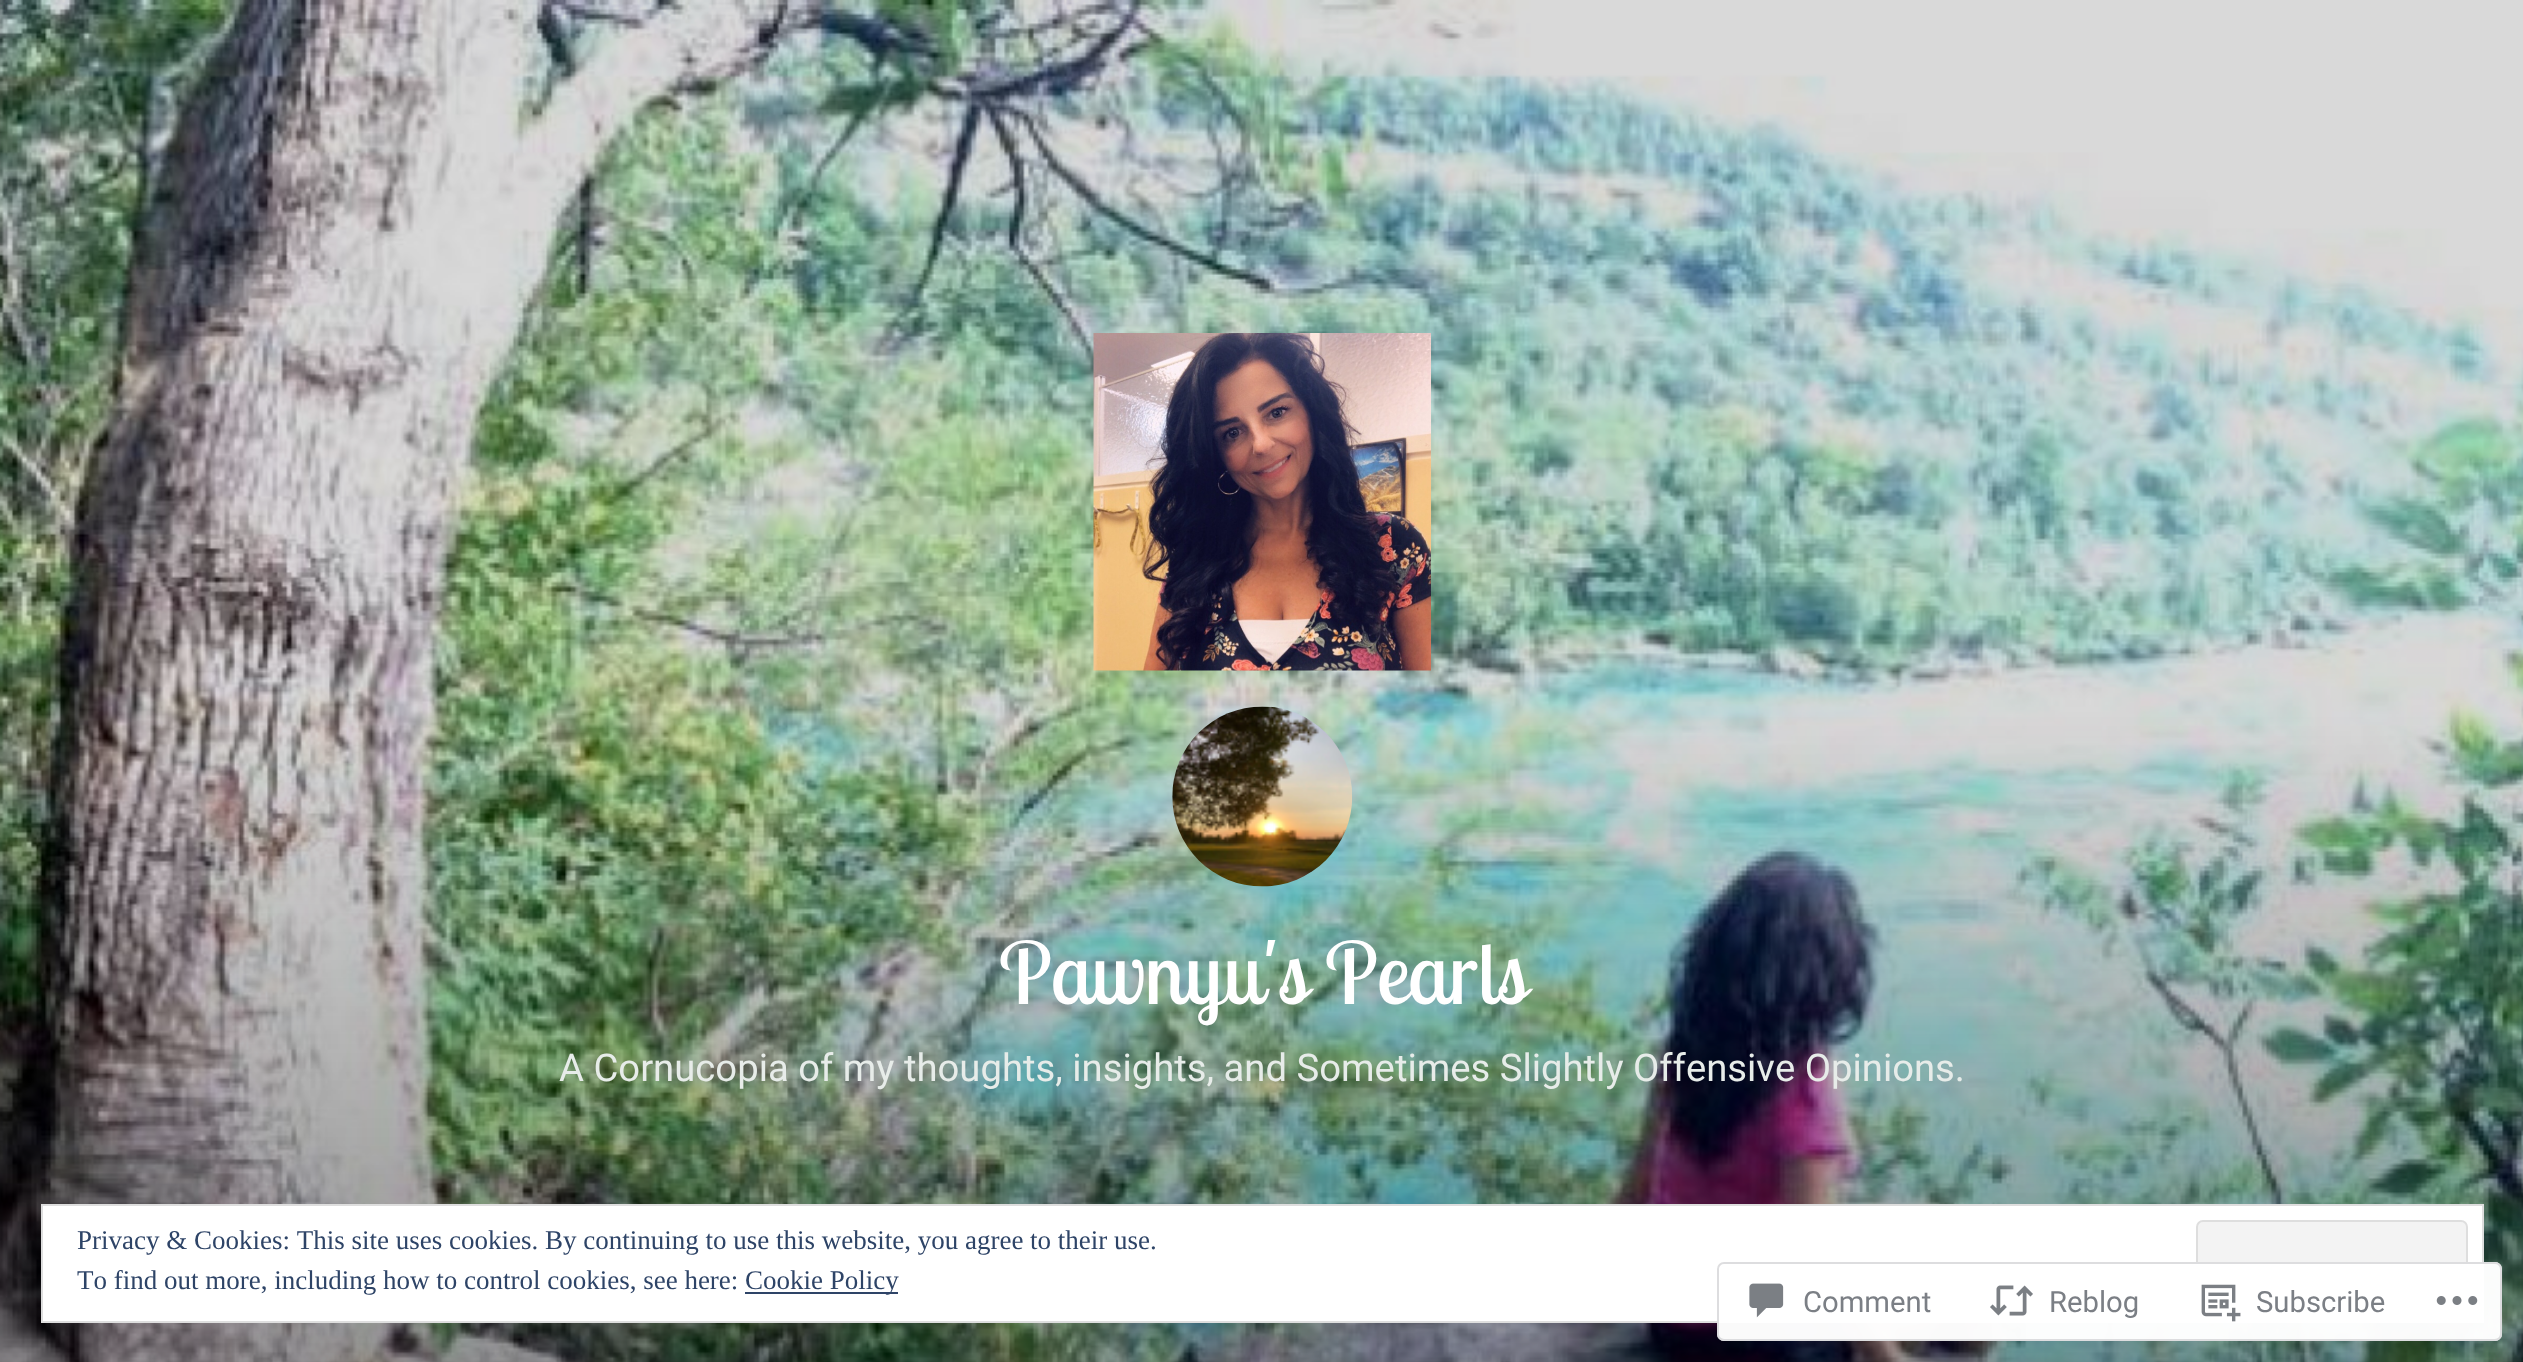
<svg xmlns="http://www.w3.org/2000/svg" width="2523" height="1362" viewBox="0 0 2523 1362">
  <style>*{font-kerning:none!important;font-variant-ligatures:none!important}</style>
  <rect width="100%" height="100%" fill="rgb(255,255,255)"/>
  <image x="0" y="0" width="2523" height="1362" href="pic1.png"/>
  <image x="1093" y="333" width="338" height="338" href="pic2.png"/>
  <image x="1172" y="706" width="180" height="181" href="pic3.png"/>
  <text x="999" y="1004" font-family="Lobster Two" font-size="85.5" fill="rgb(255,255,255)">Pawnyu's Pearls</text>
  <text x="559" y="1081" font-family="Roboto" font-size="38.25" fill="rgb(231,236,233)">A Cornucopia of my thoughts, insights, and Sometimes Slightly Offensive Opinions.</text>
  <rect x="42" y="1205" width="2441" height="117" fill="rgb(255,255,255)" stroke="rgb(222,222,222)" stroke-width="2"/>
  <text x="77" y="1249" font-family="Liberation Serif" font-size="27" fill="rgb(46,68,103)">Privacy &amp; Cookies: This site uses cookies. By continuing to use this website, you agree to their use.</text>
  <rect x="2197" y="1221" width="270" height="85" rx="6" fill="rgb(243,243,243)" stroke="rgb(222,222,222)" stroke-width="2"/>
  <text x="77" y="1289" font-family="Liberation Serif" font-size="27" fill="rgb(46,68,103)">To find out more, including how to control cookies, see here:</text>
  <rect x="745" y="1292" width="153" height="2" fill="rgb(46,68,103)"/>
  <text x="745" y="1289" font-family="Liberation Serif" font-size="27" fill="rgb(46,68,103)">Cookie Policy</text>
  <rect x="1717" y="1262" width="785" height="79" rx="7" fill="rgba(255,255,255,0.98)"/>
  <rect x="1718" y="1263" width="783" height="77" rx="6" fill="none" stroke="rgba(220,220,222,0.98)" stroke-width="2"/>
  <image x="1749" y="1283" width="35" height="35" href="pic4.png"/>
  <text x="1803" y="1312" font-family="Roboto" font-size="29.25" fill="rgb(123,127,133)">Comment</text>
  <image x="1990" y="1285" width="43" height="31" href="pic5.png"/>
  <text x="2049" y="1312" font-family="Roboto" font-size="29.25" fill="rgb(123,127,133)">Reblog</text>
  <image x="2201" y="1284" width="40" height="38" href="pic6.png"/>
  <text x="2256" y="1312" font-family="Roboto" font-size="29.25" fill="rgb(123,127,133)">Subscribe</text>
  <image x="2436" y="1296" width="42" height="9" href="pic7.png"/>
</svg>
